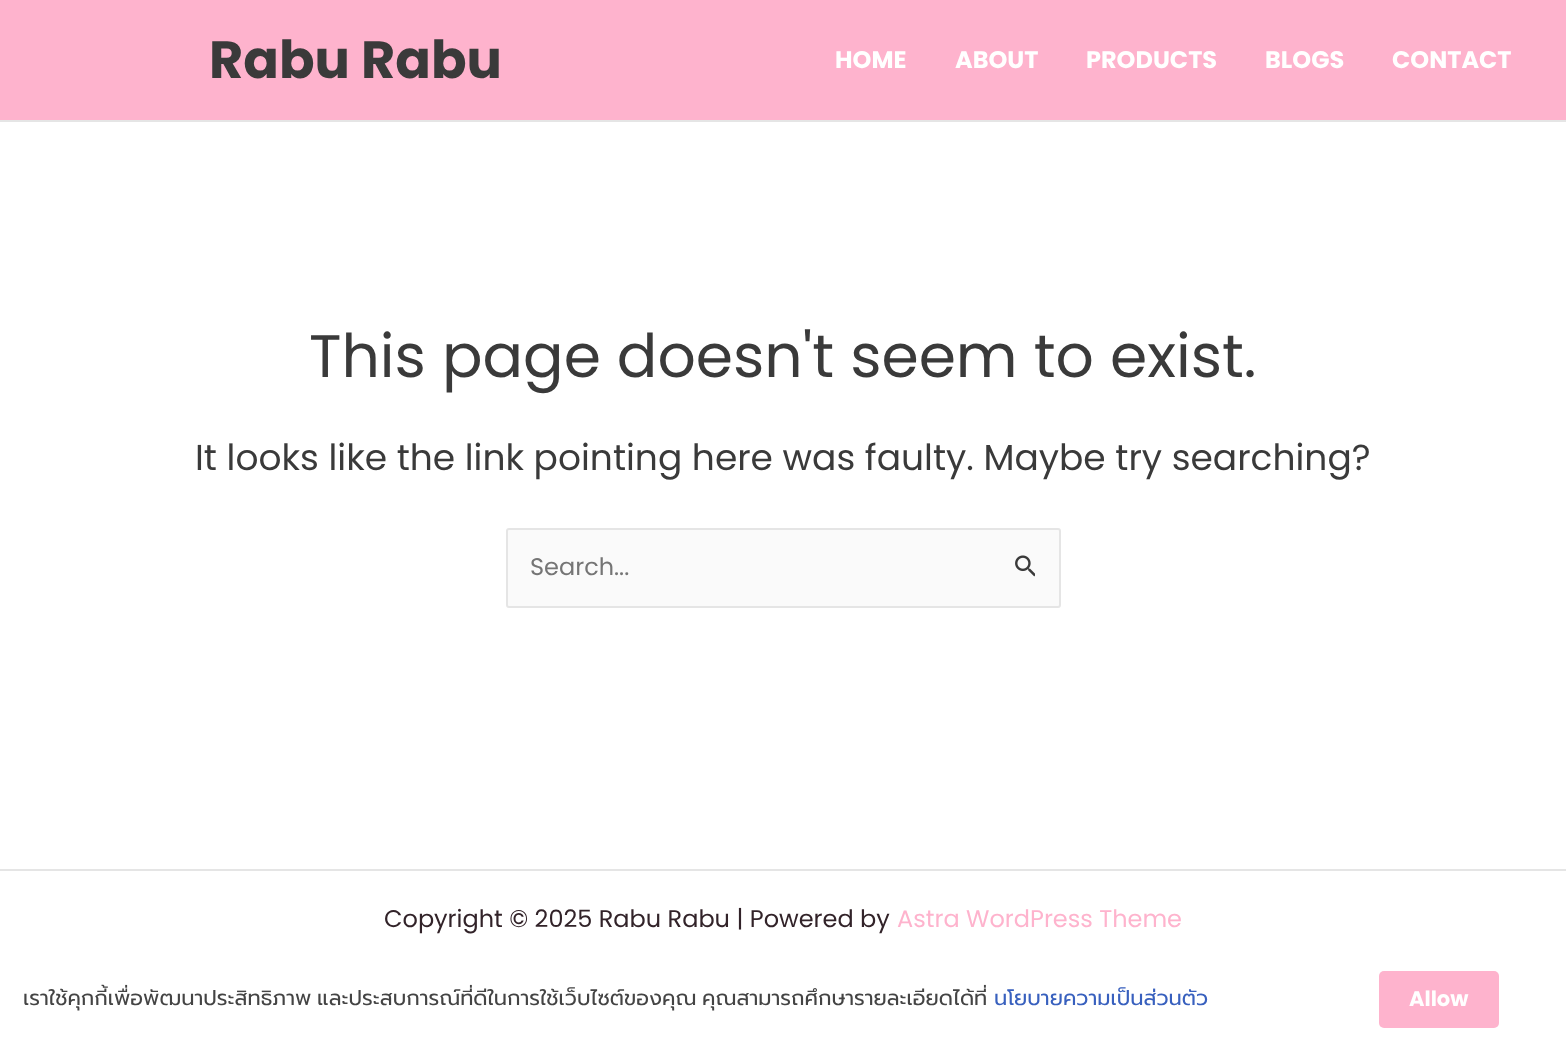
<svg xmlns="http://www.w3.org/2000/svg" width="1566" height="1050" viewBox="0 0 1566 1050">
  <rect width="100%" height="100%" fill="rgb(255,255,255)"/>
  <rect x="0" y="0" width="1566" height="120" fill="rgb(254,179,205)"/>
  <rect x="0" y="120" width="1566" height="2" fill="rgb(229,229,229)"/>
  <text x="209" y="78" font-family="Poppins" font-size="52.5" font-weight="bold" fill="rgb(58,58,58)">Rabu Rabu</text>
  <g font-family="Poppins" font-size="24" font-weight="bold" fill="rgb(255,255,255)">
    <text x="835" y="68">HOME</text>
    <text x="955" y="68">ABOUT</text>
    <text x="1086" y="68">PRODUCTS</text>
    <text x="1265" y="68">BLOGS</text>
    <text x="1392" y="68">CONTACT</text>
  </g>
  <text x="309" y="377" font-family="Poppins" font-size="60" fill="rgb(58,58,58)">This page doesn't seem to exist.</text>
  <text x="195" y="470" font-family="Poppins" font-size="36" fill="rgb(58,58,58)">It looks like the link pointing here was faulty. Maybe try searching?</text>
  <rect x="507" y="529" width="553" height="78" rx="2" fill="rgb(250,250,250)" stroke="rgb(229,229,229)" stroke-width="2"/>
  <text x="530" y="575" font-family="Poppins" font-size="24" fill="rgb(117,117,117)">Search...</text>
  <image x="1015" y="555" width="20" height="22" href="pic1.png"/>
  <rect x="0" y="869" width="1566" height="2" fill="rgb(229,229,229)"/>
  <text x="384" y="927" font-family="Poppins" font-size="24" fill="rgb(50,35,41)">Copyright © 2025 Rabu Rabu | Powered by</text>
  <text x="897" y="927" font-family="Poppins" font-size="24" fill="rgb(254,179,205)">Astra WordPress Theme</text>
  <text x="23" y="1005" word-spacing="-2" font-family="Prompt" font-size="21" fill="rgb(68,68,68)">เราใช้คุกกี้เพื่อพัฒนาประสิทธิภาพ และประสบการณ์ที่ดีในการใช้เว็บไซต์ของคุณ คุณสามารถศึกษารายละเอียดได้ที่</text>
  <text x="994" y="1005" font-family="Prompt" font-size="21" fill="rgb(56,96,190)">นโยบายความเป็นส่วนตัว</text>
  <rect x="1379" y="971" width="120" height="57" rx="5" fill="rgb(254,179,205)"/>
  <text x="1409" y="1006" font-family="Poppins" font-size="21" font-weight="bold" fill="rgb(255,255,255)">Allow</text>
</svg>
